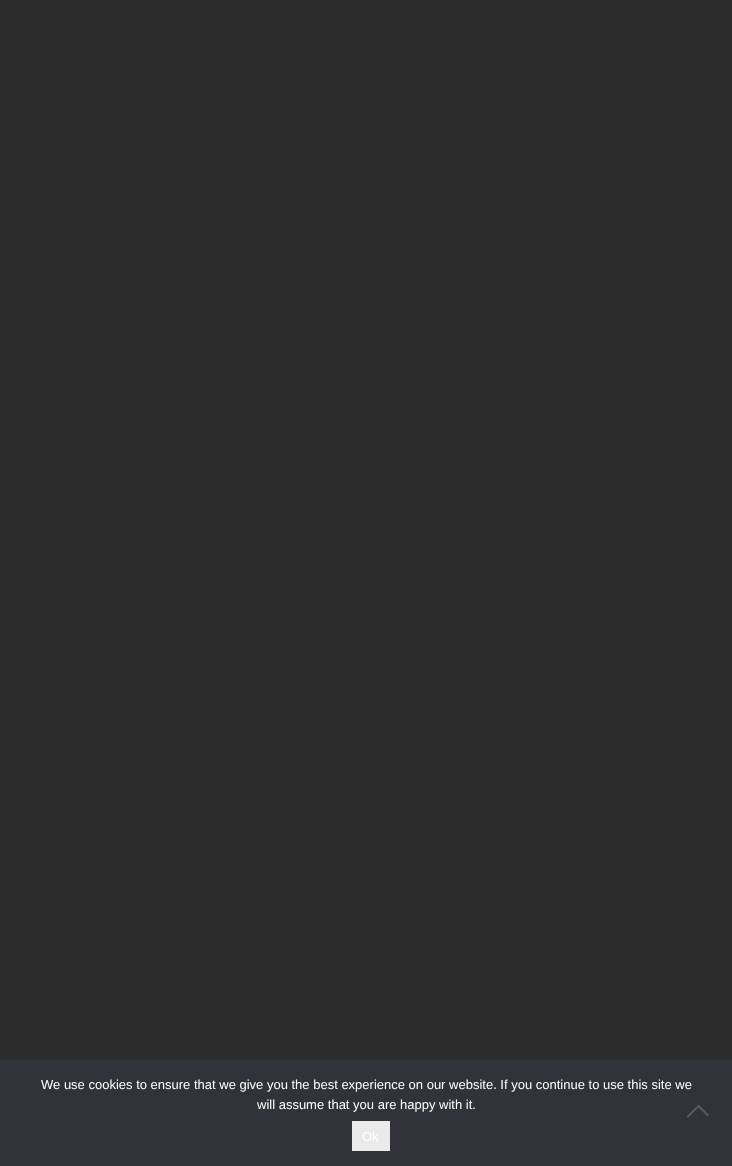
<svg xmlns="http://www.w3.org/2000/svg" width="732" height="1166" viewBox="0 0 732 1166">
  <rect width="100%" height="100%" fill="rgb(44,44,44)"/>
  <rect x="0" y="1060" width="732" height="106" fill="rgb(50,50,58)"/>
  <g font-family="Liberation Sans" font-size="13" fill="rgb(255,255,255)">
    <text x="41" y="1089">We use cookies to ensure that we give you the best experience on our website. If you continue to use this site we</text>
    <text x="257" y="1109">will assume that you are happy with it.</text>
  </g>
  <path d="M697 1106L698.5 1107.5L688 1118L686.5 1116.5Z" fill="rgb(89,89,93)"/>
  <path d="M697 1106L698.5 1104.5L709 1115L707.5 1116.5Z" fill="rgb(89,89,93)"/>
  <rect x="352" y="1121" width="38" height="30" fill="rgb(234,234,234)"/>
  <text x="362" y="1141" font-family="Liberation Sans" font-size="13" fill="rgb(255,255,255)">Ok</text>
</svg>
